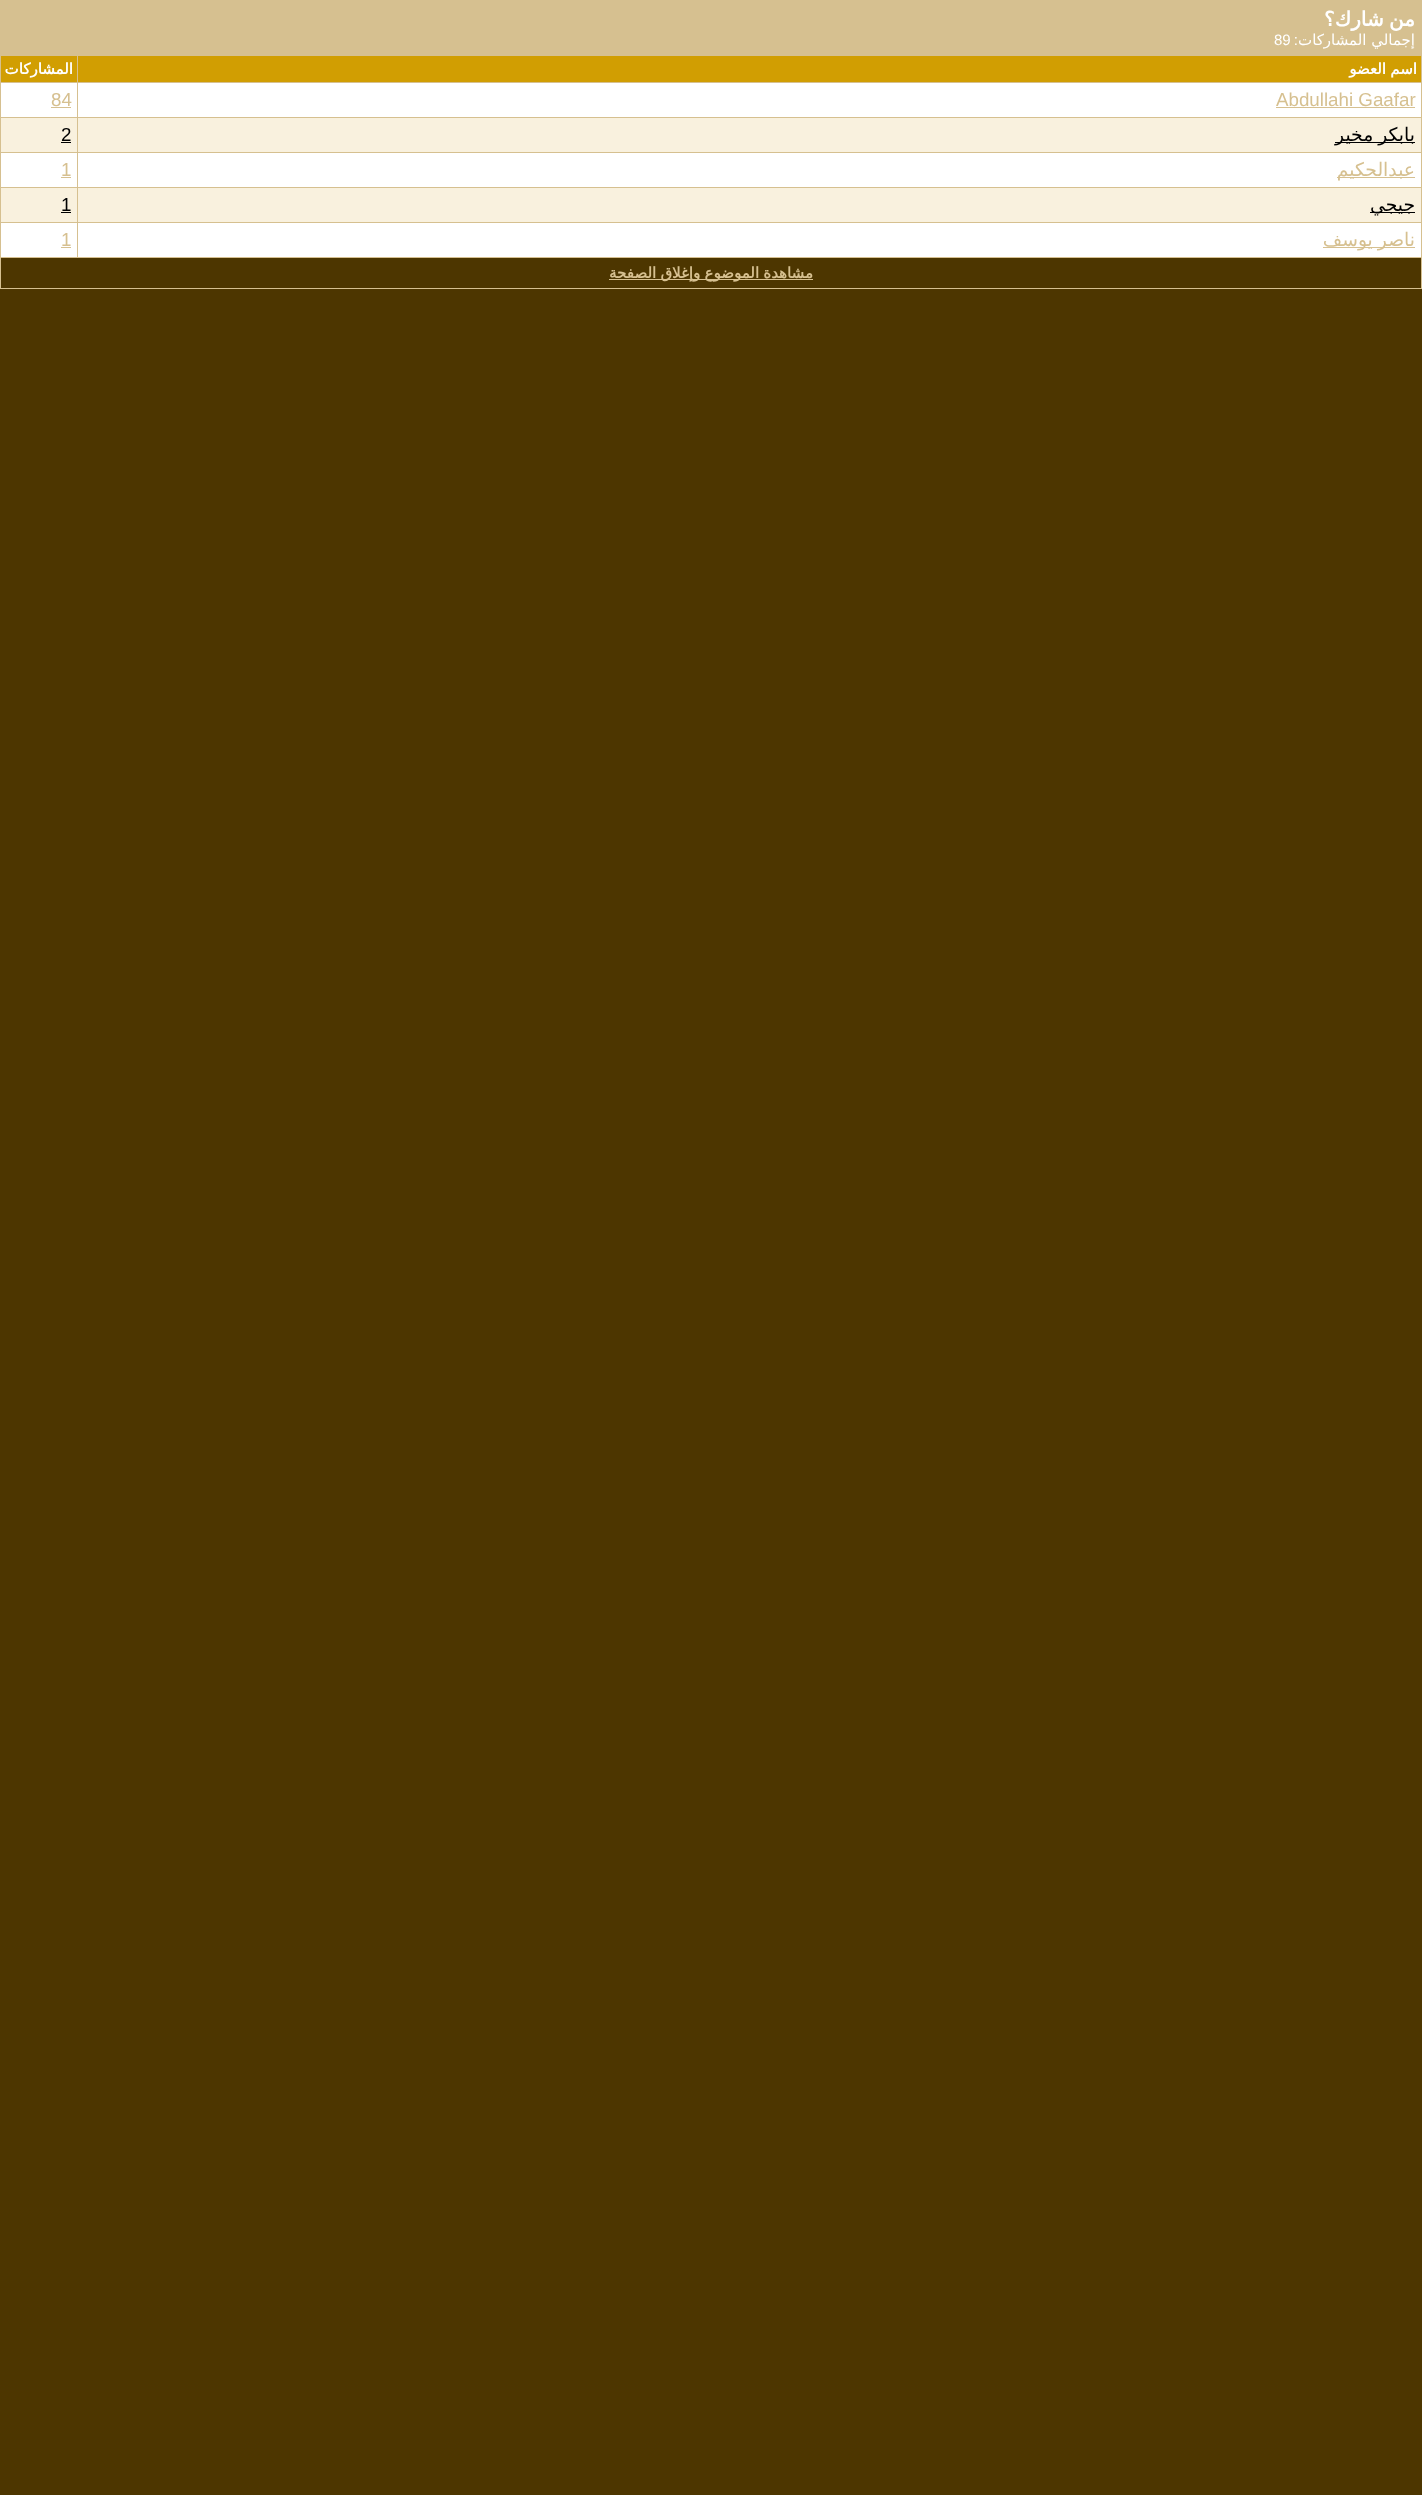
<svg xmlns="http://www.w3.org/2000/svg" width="1422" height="2495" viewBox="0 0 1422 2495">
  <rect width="100%" height="100%" fill="rgb(77,54,0)"/>
  <rect x="0" y="0" width="1422" height="289" fill="rgb(214,192,144)"/>
  <text x="1415" y="26" word-spacing="-1" font-family="DejaVu Sans" font-size="20" font-weight="bold" direction="rtl" fill="rgb(255,255,255)">من شارك؟</text>
  <text x="1415" y="45" font-family="DejaVu Sans" font-size="15" direction="rtl" fill="rgb(255,255,255)">إجمالي المشاركات</text>
  <text x="1298" y="45" font-family="Liberation Sans" font-size="15" direction="rtl" fill="rgb(255,255,255)">:</text>
  <text x="1274" y="45" font-family="Liberation Sans" font-size="15" fill="rgb(255,255,255)">89</text>
  <rect x="78" y="56" width="1343" height="26" fill="rgb(209,158,2)"/>
  <text x="1417" y="74" word-spacing="-0.5" font-family="DejaVu Sans" font-size="15" font-weight="bold" direction="rtl" fill="rgb(255,255,255)">اسم العضو</text>
  <rect x="1" y="56" width="76" height="26" fill="rgb(209,158,2)"/>
  <text x="73" y="74" font-family="DejaVu Sans" font-size="15" font-weight="bold" direction="rtl" fill="rgb(255,255,255)">المشاركات</text>
  <rect x="78" y="83" width="1343" height="34" fill="rgb(255,255,255)"/>
  <text x="1276" y="106" font-family="Liberation Sans" font-size="18.75" fill="rgb(214,192,144)">Abdullahi Gaafar</text>
  <rect x="1276" y="107" width="139" height="1" fill="rgb(214,192,144)"/>
  <rect x="1" y="83" width="76" height="34" fill="rgb(255,255,255)"/>
  <text x="51" y="106" font-family="Liberation Sans" font-size="18.75" fill="rgb(214,192,144)">84</text>
  <rect x="51" y="107" width="20" height="1" fill="rgb(214,192,144)"/>
  <rect x="78" y="118" width="1343" height="34" fill="rgb(249,241,222)"/>
  <rect x="1335" y="142" width="80" height="1" fill="rgb(0,0,0)"/>
  <text x="1415" y="141" word-spacing="-1" font-family="DejaVu Sans" font-size="18.75" direction="rtl" fill="rgb(0,0,0)">بابكر مخير</text>
  <rect x="1" y="118" width="76" height="34" fill="rgb(249,241,222)"/>
  <text x="61" y="141" font-family="Liberation Sans" font-size="18.75" fill="rgb(0,0,0)">2</text>
  <rect x="61" y="142" width="10" height="1" fill="rgb(0,0,0)"/>
  <rect x="78" y="153" width="1343" height="34" fill="rgb(255,255,255)"/>
  <rect x="1337" y="177" width="78" height="1" fill="rgb(214,192,144)"/>
  <text x="1415" y="176" font-family="DejaVu Sans" font-size="18.75" direction="rtl" fill="rgb(214,192,144)">عبدالحكيم</text>
  <rect x="1" y="153" width="76" height="34" fill="rgb(255,255,255)"/>
  <text x="61" y="176" font-family="Liberation Sans" font-size="18.75" fill="rgb(214,192,144)">1</text>
  <rect x="61" y="177" width="10" height="1" fill="rgb(214,192,144)"/>
  <rect x="78" y="188" width="1343" height="34" fill="rgb(249,241,222)"/>
  <rect x="1370" y="212" width="45" height="1" fill="rgb(0,0,0)"/>
  <text x="1415" y="211" font-family="DejaVu Sans" font-size="18.75" direction="rtl" fill="rgb(0,0,0)">جيجي</text>
  <rect x="1" y="188" width="76" height="34" fill="rgb(249,241,222)"/>
  <text x="61" y="211" font-family="Liberation Sans" font-size="18.75" fill="rgb(0,0,0)">1</text>
  <rect x="61" y="212" width="10" height="1" fill="rgb(0,0,0)"/>
  <rect x="78" y="223" width="1343" height="34" fill="rgb(255,255,255)"/>
  <rect x="1323" y="247" width="92" height="1" fill="rgb(214,192,144)"/>
  <text x="1415" y="246" word-spacing="-1" font-family="DejaVu Sans" font-size="18.75" direction="rtl" fill="rgb(214,192,144)">ناصر يوسف</text>
  <rect x="1" y="223" width="76" height="34" fill="rgb(255,255,255)"/>
  <text x="61" y="246" font-family="Liberation Sans" font-size="18.75" fill="rgb(214,192,144)">1</text>
  <rect x="61" y="247" width="10" height="1" fill="rgb(214,192,144)"/>
  <rect x="1" y="258" width="1420" height="30" fill="rgb(77,54,0)"/>
  <rect x="609" y="279" width="204" height="1" fill="rgb(214,192,144)"/>
  <text x="813" y="278" word-spacing="-0.5" font-family="DejaVu Sans" font-size="15" font-weight="bold" direction="rtl" fill="rgb(214,192,144)">مشاهدة الموضوع وإغلاق الصفحة</text>
</svg>
